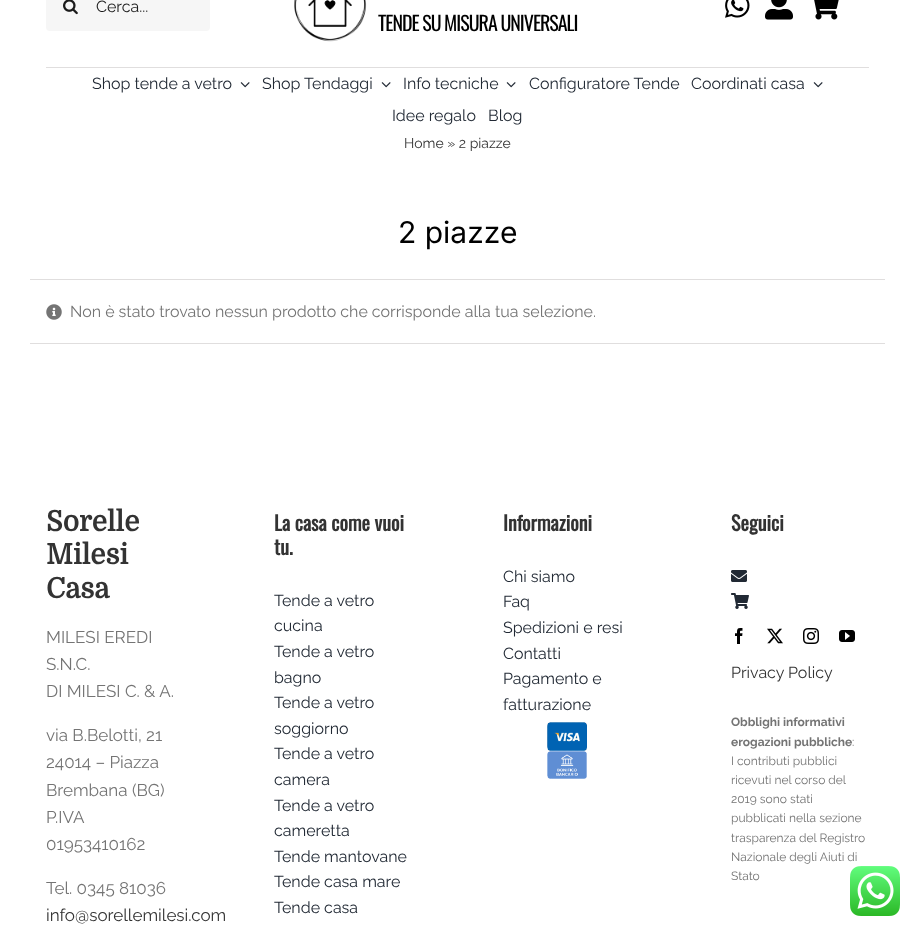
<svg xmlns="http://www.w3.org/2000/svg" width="915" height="931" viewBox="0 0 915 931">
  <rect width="100%" height="100%" fill="rgb(255,255,255)"/>
  <rect x="46" y="-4" width="164" height="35" rx="4" fill="rgb(246,246,246)"/>
  <image x="63" y="0" width="15" height="15" href="pic1.png"/>
  <text x="96" y="12" font-family="Raleway" font-size="16" fill="rgb(27,27,27)">Cerca...</text>
  <image x="725" y="0" width="25" height="18" href="pic2.png"/>
  <image x="765" y="0" width="28" height="20" href="pic3.png"/>
  <image x="814" y="0" width="25" height="20" href="pic4.png"/>
  <image x="294" y="0" width="73" height="42" href="pic5.png"/>
  <text x="378" y="31" font-family="Oswald" font-size="20" letter-spacing="-1" fill="rgb(0,0,0)">TENDE SU MISURA UNIVERSALI</text>
  <rect x="46" y="67" width="823" height="1" fill="rgb(224,222,222)"/>
  <text x="92" y="89" font-family="Raleway" font-size="16" fill="rgb(33,41,52)">Shop tende a vetro</text>
  <image x="240" y="82" width="10" height="6" href="pic6.png"/>
  <text x="262" y="89" font-family="Raleway" font-size="16" fill="rgb(33,41,52)">Shop Tendaggi</text>
  <image x="381" y="82" width="10" height="6" href="pic6.png"/>
  <text x="403" y="89" font-family="Raleway" font-size="16" fill="rgb(33,41,52)">Info tecniche</text>
  <image x="506" y="82" width="10" height="6" href="pic6.png"/>
  <g font-family="Raleway" font-size="16" fill="rgb(33,41,52)">
    <text x="529" y="89">Configuratore Tende</text>
    <text x="691" y="89">Coordinati casa</text>
  </g>
  <image x="813" y="82" width="10" height="6" href="pic6.png"/>
  <g font-family="Raleway" font-size="16" fill="rgb(33,41,52)">
    <text x="392" y="121">Idee regalo</text>
    <text x="488" y="121">Blog</text>
  </g>
  <text x="404" y="148" font-family="Raleway" font-size="14" fill="rgb(51,51,51)">Home » 2 piazze</text>
  <text x="398" y="243" font-family="Inter" font-size="30" fill="rgb(0,0,0)">2 piazze</text>
  <rect x="30" y="279" width="855" height="1" fill="rgb(224,222,222)"/>
  <rect x="30" y="343" width="855" height="1" fill="rgb(224,222,222)"/>
  <image x="46" y="304" width="16" height="16" href="pic7.png"/>
  <text x="70" y="317" font-family="Raleway" font-size="16" fill="rgb(116,116,116)">Non è stato trovato nessun prodotto che corrisponde alla tua selezione.</text>
  <g font-family="Domine" font-size="28" font-weight="bold" fill="rgb(51,51,51)">
    <text>
      <tspan x="46" y="531">Sorelle</tspan>
      <tspan x="46" y="564">Milesi</tspan>
      <tspan x="46" y="598">Casa</tspan>
    </text>
  </g>
  <g font-family="Raleway" font-size="17" fill="rgb(116,116,116)">
    <text>
      <tspan x="46" y="643">MILESI EREDI</tspan>
      <tspan x="46" y="670">S.N.C.</tspan>
      <tspan x="46" y="697">DI MILESI C. &amp; A.</tspan>
    </text>
    <text>
      <tspan x="46" y="741">via B.Belotti, 21</tspan>
      <tspan x="46" y="768">24014 – Piazza</tspan>
      <tspan x="46" y="796">Brembana (BG)</tspan>
      <tspan x="46" y="823">P.IVA</tspan>
      <tspan x="46" y="850">01953410162</tspan>
    </text>
    <text x="46" y="894">Tel. 0345 81036</text>
  </g>
  <text x="46" y="921" font-family="Raleway" font-size="17" fill="rgb(51,51,51)">info@sorellemilesi.com</text>
  <g font-family="Oswald" font-size="20" font-weight="bold" fill="rgb(51,51,51)">
    <text>
      <tspan x="274" y="531">La casa come vuoi</tspan>
      <tspan x="274" y="555">tu.</tspan>
    </text>
  </g>
  <g font-family="Raleway" font-size="16" fill="rgb(33,41,52)">
    <text>
      <tspan x="274" y="606">Tende a vetro</tspan>
      <tspan x="274" y="631">cucina</tspan>
      <tspan x="274" y="657">Tende a vetro</tspan>
      <tspan x="274" y="683">bagno</tspan>
      <tspan x="274" y="708">Tende a vetro</tspan>
      <tspan x="274" y="734">soggiorno</tspan>
      <tspan x="274" y="759">Tende a vetro</tspan>
      <tspan x="274" y="785">camera</tspan>
      <tspan x="274" y="811">Tende a vetro</tspan>
      <tspan x="274" y="836">cameretta</tspan>
      <tspan x="274" y="862">Tende mantovane</tspan>
      <tspan x="274" y="887">Tende casa mare</tspan>
      <tspan x="274" y="913">Tende casa</tspan>
    </text>
  </g>
  <text x="503" y="531" font-family="Oswald" font-size="20" font-weight="bold" fill="rgb(51,51,51)">Informazioni</text>
  <g font-family="Raleway" font-size="16" fill="rgb(33,41,52)">
    <text>
      <tspan x="503" y="582">Chi siamo</tspan>
      <tspan x="503" y="607">Faq</tspan>
      <tspan x="503" y="633">Spedizioni e resi</tspan>
      <tspan x="503" y="659">Contatti</tspan>
      <tspan x="503" y="684">Pagamento e</tspan>
      <tspan x="503" y="710">fatturazione</tspan>
    </text>
  </g>
  <image x="547" y="722" width="40" height="29" href="pic8.png"/>
  <image x="547" y="751" width="40" height="28" href="pic9.png"/>
  <text x="731" y="531" font-family="Oswald" font-size="20" font-weight="bold" fill="rgb(51,51,51)">Seguici</text>
  <image x="731" y="570" width="16" height="12" href="pic10.png"/>
  <image x="731" y="593" width="18" height="16" href="pic11.png"/>
  <image x="735" y="628" width="8" height="16" href="pic12.png"/>
  <image x="767" y="628" width="16" height="16" href="pic13.png"/>
  <image x="803" y="628" width="16" height="16" href="pic14.png"/>
  <image x="839" y="630" width="16" height="12" href="pic15.png"/>
  <text x="731" y="678" font-family="Raleway" font-size="16" fill="rgb(51,51,51)">Privacy Policy</text>
  <g font-family="Raleway" font-size="12" font-weight="bold" fill="rgb(116,116,116)">
    <text>
      <tspan x="731" y="726">Obblighi informativi</tspan>
      <tspan x="731" y="746">erogazioni pubbliche</tspan>
    </text>
  </g>
  <g font-family="Raleway" font-size="12" fill="rgb(116,116,116)">
    <text x="852" y="746">:</text>
    <text>
      <tspan x="731" y="765">I contributi pubblici</tspan>
      <tspan x="731" y="784">ricevuti nel corso del</tspan>
      <tspan x="731" y="803">2019 sono stati</tspan>
      <tspan x="731" y="822">pubblicati nella sezione</tspan>
      <tspan x="731" y="842">trasparenza del Registro</tspan>
      <tspan x="731" y="861">Nazionale degli Aiuti di</tspan>
      <tspan x="731" y="880">Stato</tspan>
    </text>
  </g>
  <image x="850" y="866" width="50" height="50" href="pic16.png"/>
</svg>
